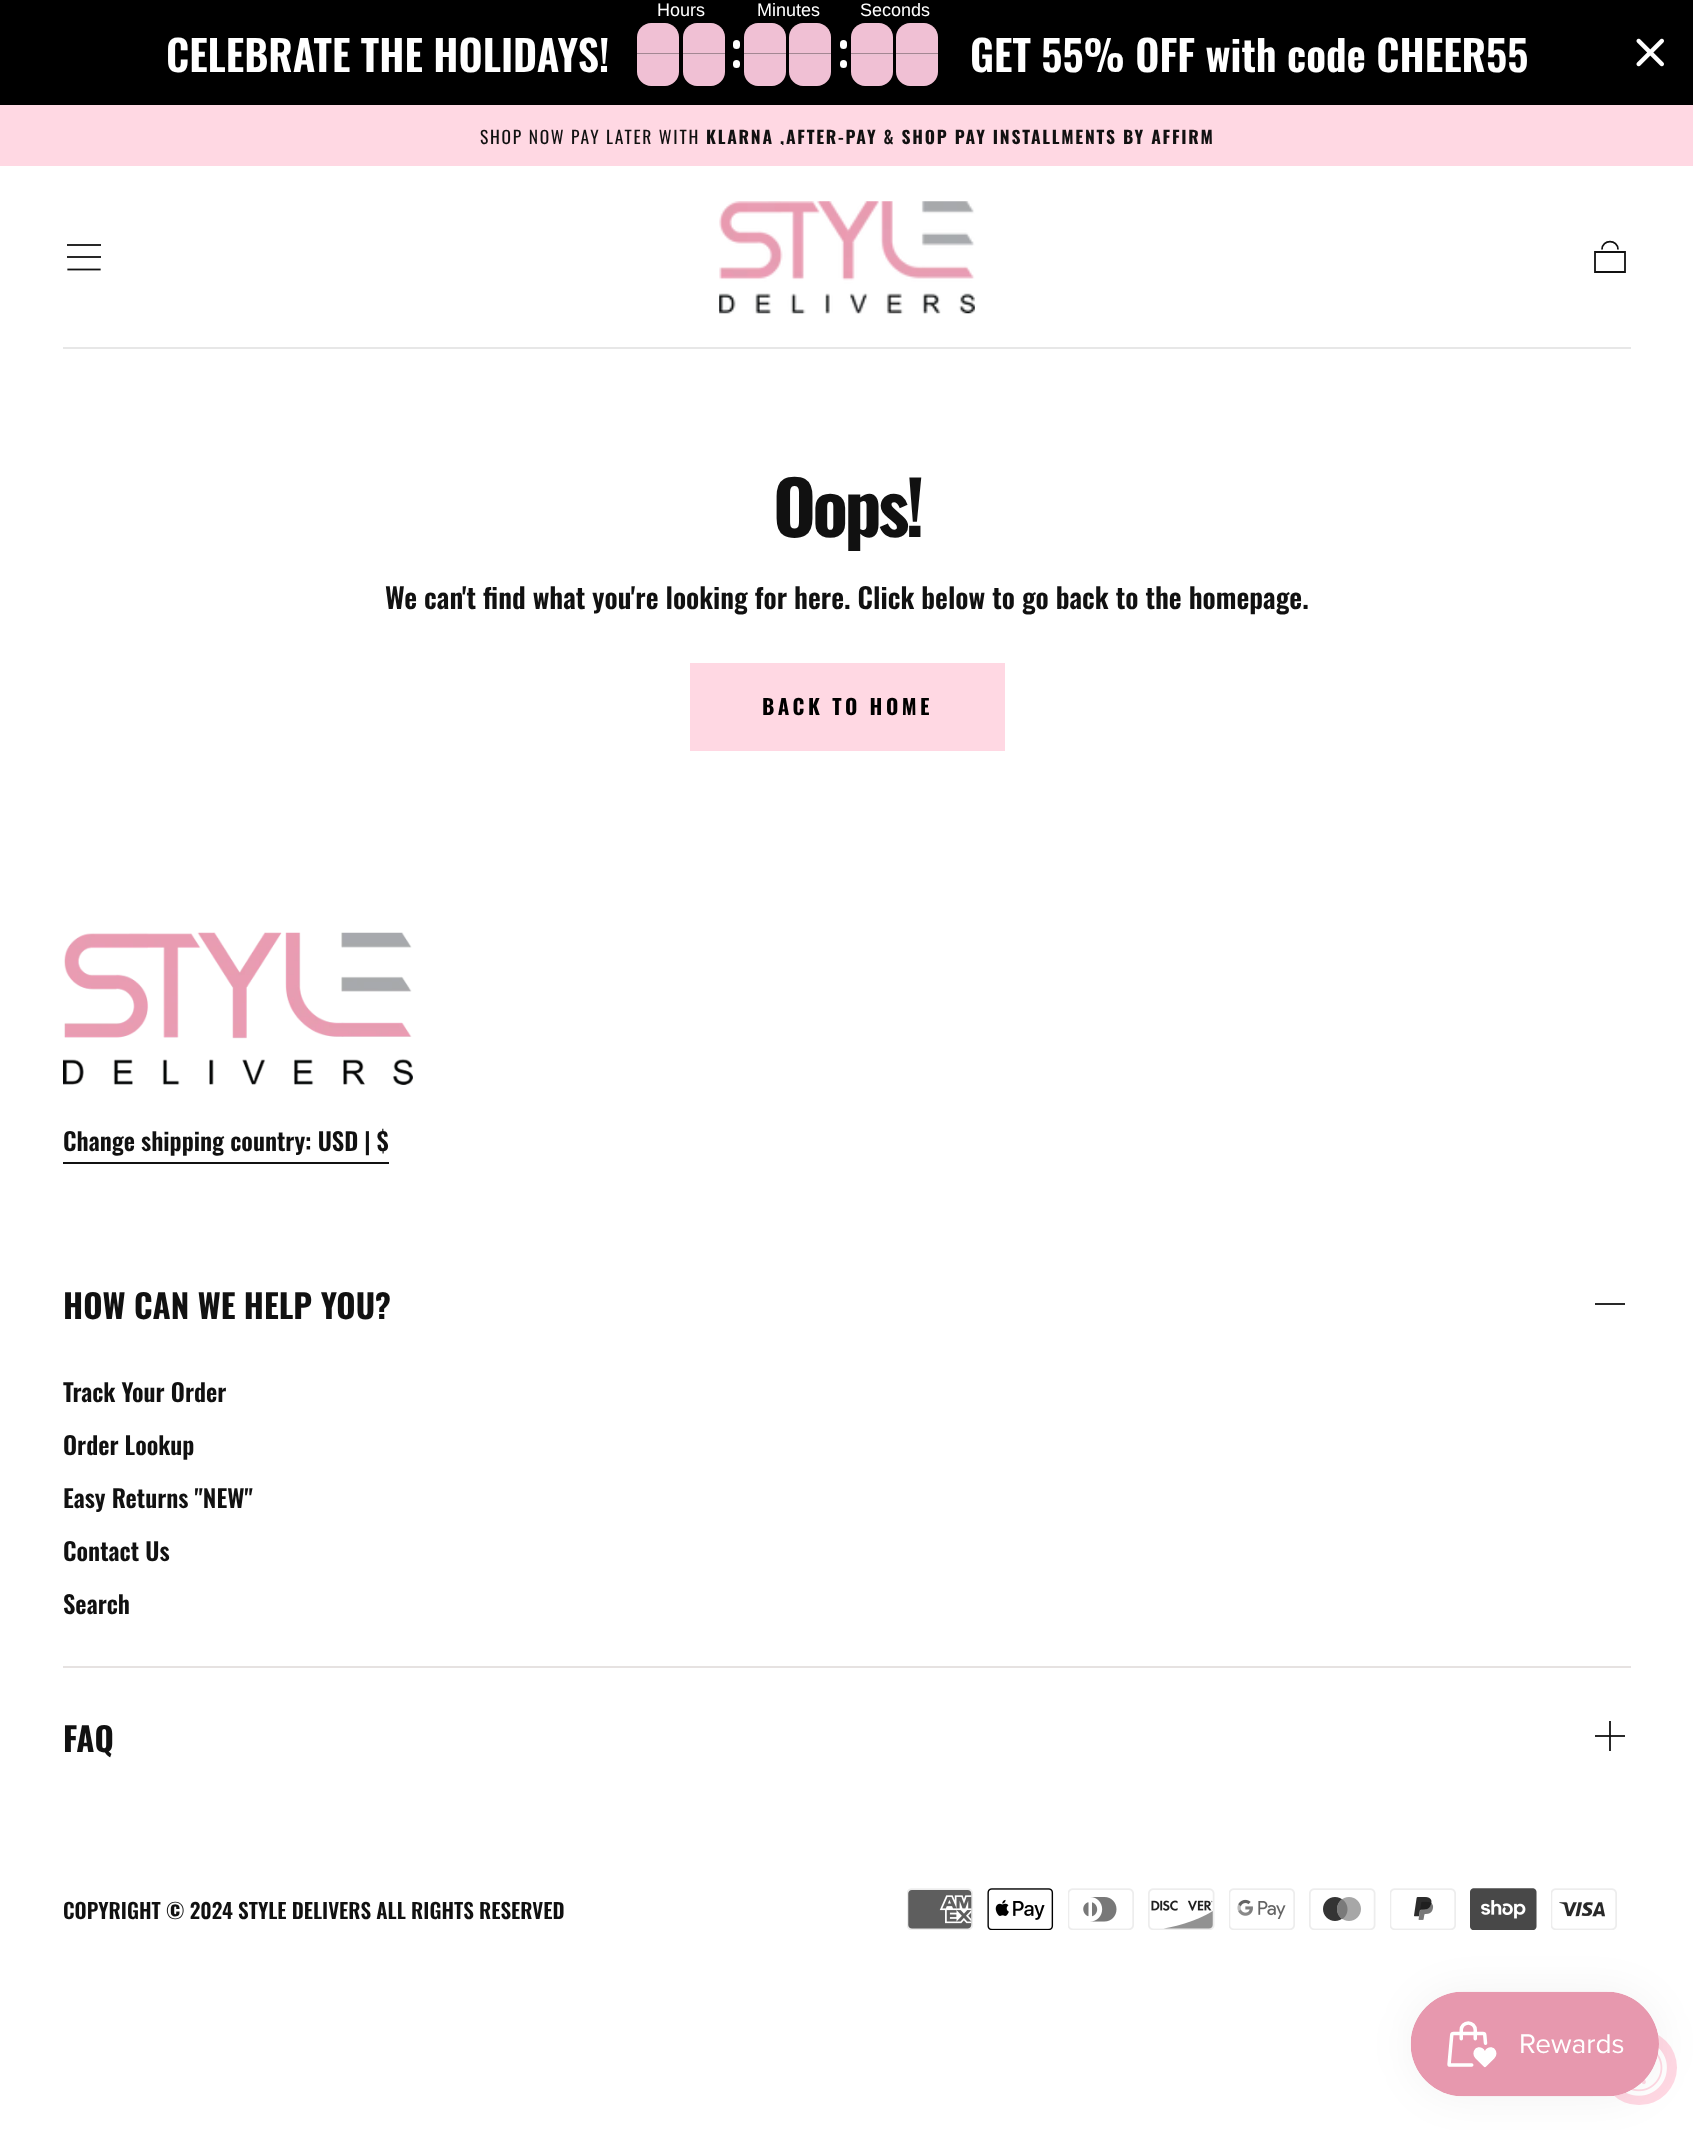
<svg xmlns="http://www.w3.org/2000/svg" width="1693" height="2130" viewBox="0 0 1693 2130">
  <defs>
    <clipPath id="clip1"><rect x="63" y="126" width="1568" height="19"/></clipPath>
  </defs>
  <rect width="100%" height="100%" fill="rgb(255,255,255)"/>
  <rect x="1595" y="1735" width="30" height="2" fill="rgb(41,41,41)"/>
  <rect x="0" y="0" width="1693" height="105" fill="rgb(0,0,0)"/>
  <text x="657" y="16" font-family="Liberation Sans" font-size="18" fill="rgb(255,255,255)">Hours</text>
  <path d="M651 23H665C672.5 23 679 29.5 679 37V54H637V37C637 29.5 643.5 23 651 23Z" fill="rgb(240,192,212)"/>
  <rect x="637" y="53" width="42" height="1" fill="rgba(51,51,51,0.4)"/>
  <path d="M637 54H679V72C679 79.5 672.5 86 665 86H651C643.5 86 637 79.5 637 72Z" fill="rgb(240,192,212)"/>
  <rect x="637" y="54" width="42" height="2" fill="rgba(204,204,204,0.1)"/>
  <path d="M697 23H711C718.5 23 725 29.5 725 37V54H683V37C683 29.5 689.5 23 697 23Z" fill="rgb(240,192,212)"/>
  <rect x="683" y="53" width="42" height="1" fill="rgba(51,51,51,0.4)"/>
  <path d="M683 54H725V72C725 79.5 718.5 86 711 86H697C689.5 86 683 79.5 683 72Z" fill="rgb(240,192,212)"/>
  <rect x="683" y="54" width="42" height="2" fill="rgba(204,204,204,0.1)"/>
  <text x="757" y="16" font-family="Liberation Sans" font-size="18" fill="rgb(255,255,255)">Minutes</text>
  <path d="M758 23H772C779.5 23 786 29.5 786 37V54H744V37C744 29.5 750.5 23 758 23Z" fill="rgb(240,192,212)"/>
  <rect x="744" y="53" width="42" height="1" fill="rgba(51,51,51,0.4)"/>
  <path d="M744 54H786V72C786 79.5 779.5 86 772 86H758C750.5 86 744 79.5 744 72Z" fill="rgb(240,192,212)"/>
  <rect x="744" y="54" width="42" height="2" fill="rgba(204,204,204,0.1)"/>
  <path d="M803 23H817C824.5 23 831 29.5 831 37V54H789V37C789 29.5 795.5 23 803 23Z" fill="rgb(240,192,212)"/>
  <rect x="789" y="53" width="42" height="1" fill="rgba(51,51,51,0.4)"/>
  <path d="M789 54H831V72C831 79.5 824.5 86 817 86H803C795.5 86 789 79.5 789 72Z" fill="rgb(240,192,212)"/>
  <rect x="789" y="54" width="42" height="2" fill="rgba(204,204,204,0.1)"/>
  <text x="860" y="16" font-family="Liberation Sans" font-size="18" fill="rgb(255,255,255)">Seconds</text>
  <path d="M865 23H879C886.5 23 893 29.5 893 37V54H851V37C851 29.5 857.5 23 865 23Z" fill="rgb(240,192,212)"/>
  <rect x="851" y="53" width="42" height="1" fill="rgba(51,51,51,0.4)"/>
  <path d="M851 54H893V72C893 79.5 886.5 86 879 86H865C857.5 86 851 79.5 851 72Z" fill="rgb(240,192,212)"/>
  <rect x="851" y="54" width="42" height="2" fill="rgba(204,204,204,0.1)"/>
  <path d="M910 23H924C931.5 23 938 29.5 938 37V54H896V37C896 29.5 902.5 23 910 23Z" fill="rgb(240,192,212)"/>
  <rect x="896" y="53" width="42" height="1" fill="rgba(51,51,51,0.4)"/>
  <path d="M896 54H938V72C938 79.5 931.5 86 924 86H910C902.5 86 896 79.5 896 72Z" fill="rgb(240,192,212)"/>
  <rect x="896" y="54" width="42" height="2" fill="rgba(204,204,204,0.1)"/>
  <rect x="733" y="40" width="7" height="9" rx="3.5" fill="rgb(255,255,255)"/>
  <rect x="733" y="60" width="7" height="8" rx="3.5" fill="rgb(255,255,255)"/>
  <rect x="840" y="40" width="7" height="9" rx="3.5" fill="rgb(255,255,255)"/>
  <rect x="840" y="60" width="7" height="8" rx="3.5" fill="rgb(255,255,255)"/>
  <g font-family="Oswald" font-size="42" font-weight="600" fill="rgb(255,255,255)">
    <text x="166" y="72">CELEBRATE THE HOLIDAYS!</text>
    <text x="970" y="72">GET 55% OFF with code CHEER55</text>
  </g>
  <image x="1636" y="38" width="28" height="29" href="pic1.png"/>
  <rect x="0" y="105" width="1693" height="61" fill="rgb(255,216,227)"/>
  <text x="480" y="144" font-family="Oswald" font-size="17.5" letter-spacing="1.75" fill="rgb(17,17,17)">SHOP NOW PAY LATER WITH</text>
  <g clip-path="url(#clip1)">
    <text x="706" y="144" font-family="Oswald" font-size="17.5" font-weight="bold" letter-spacing="1.75" fill="rgb(17,17,17)">KLARNA ,AFTER-PAY &amp; SHOP PAY INSTALLMENTS BY AFFIRM</text>
  </g>
  <image x="67" y="244" width="34" height="27" href="pic2.png"/>
  <image x="719" y="201" width="256" height="113" href="pic3.png"/>
  <path d="M1625 272H1595V252H1625ZM1618 249.5C1618 239 1602 239 1602 249.5" fill="none" stroke="rgb(17,17,17)" stroke-width="1.8"/>
  <rect x="63" y="347" width="1568" height="2" fill="rgb(231,231,231)"/>
  <text x="773" y="537" font-family="Oswald" font-size="73.5" font-weight="bold" letter-spacing="-3.5" fill="rgb(17,17,17)">Oops!</text>
  <text x="385" y="609" font-family="Oswald" font-size="28" font-weight="600" fill="rgb(17,17,17)">We can't find what you're looking for here. Click below to go back to the homepage.</text>
  <rect x="690" y="663" width="315" height="88" fill="rgb(255,216,227)"/>
  <text x="762" y="715" font-family="Oswald" font-size="21" font-weight="bold" letter-spacing="3.5" fill="rgb(0,0,0)">BACK TO HOME</text>
  <image x="63" y="932" width="350" height="153" href="pic4.png"/>
  <text x="63" y="1151" font-family="Oswald" font-size="24.5" font-weight="600" fill="rgb(17,17,17)">Change shipping country: USD | $</text>
  <rect x="63" y="1162" width="326" height="2" fill="rgb(17,17,17)"/>
  <rect x="63" y="1666" width="1568" height="2" fill="rgb(230,226,225)"/>
  <text x="63" y="1319" font-family="Oswald" font-size="33" font-weight="bold" fill="rgb(17,17,17)">HOW CAN WE HELP YOU?</text>
  <rect x="1595" y="1303" width="30" height="2" fill="rgb(41,41,41)"/>
  <g font-family="Oswald" font-size="24.5" font-weight="600" fill="rgb(17,17,17)">
    <text x="63" y="1402">Track Your Order</text>
    <text x="63" y="1455">Order Lookup</text>
    <text x="63" y="1508">Easy Returns "NEW"</text>
    <text x="63" y="1561">Contact Us</text>
    <text x="63" y="1614">Search</text>
  </g>
  <text x="63" y="1752" font-family="Oswald" font-size="33" font-weight="bold" fill="rgb(17,17,17)">FAQ</text>
  <rect x="1609" y="1721" width="2" height="30" fill="rgb(41,41,41)"/>
  <rect x="1609" y="1735" width="2" height="2" fill="rgb(19,19,19)"/>
  <text x="63" y="1919" font-family="Oswald" font-size="21" font-weight="600" fill="rgb(17,17,17)">COPYRIGHT © 2024 STYLE DELIVERS ALL RIGHTS RESERVED</text>
  <image x="907" y="1888" width="66" height="42" href="pic5.png"/>
  <image x="987" y="1888" width="67" height="42" href="pic6.png"/>
  <image x="1068" y="1888" width="66" height="42" href="pic7.png"/>
  <image x="1148" y="1888" width="67" height="42" href="pic8.png"/>
  <image x="1229" y="1888" width="66" height="42" href="pic9.png"/>
  <image x="1309" y="1888" width="67" height="42" href="pic10.png"/>
  <image x="1390" y="1888" width="66" height="42" href="pic11.png"/>
  <image x="1470" y="1888" width="67" height="42" href="pic12.png"/>
  <image x="1551" y="1888" width="66" height="42" href="pic13.png"/>
  <rect x="1601" y="2030" width="76" height="75" rx="37.5" fill="rgb(255,216,227)"/>
  <image x="1625" y="2047" width="42" height="49" href="pic15.png"/>
  <rect x="1411" y="1992" width="248" height="105" rx="52.5" fill="rgba(0,0,0,0.05)" filter="blur(22px)"/>
  <image x="1410" y="1991" width="249" height="106" href="pic14.png"/>
</svg>
